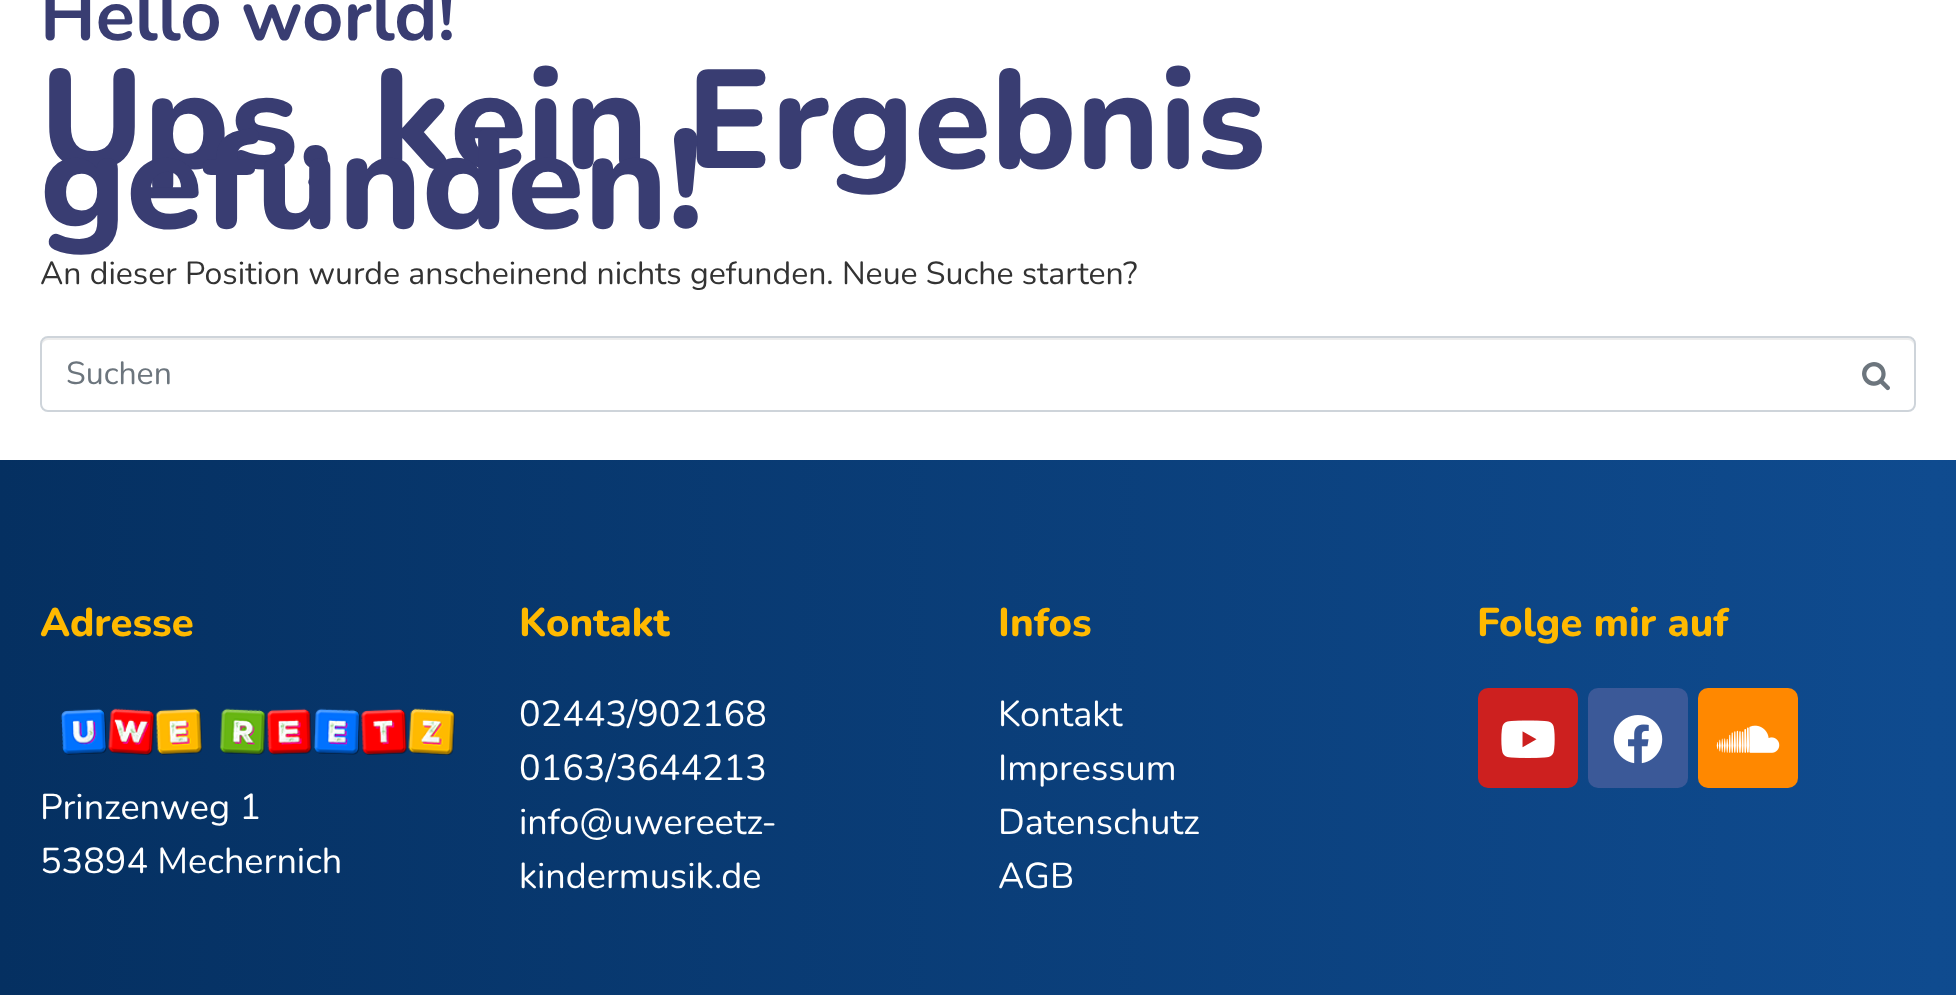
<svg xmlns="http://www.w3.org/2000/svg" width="1956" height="995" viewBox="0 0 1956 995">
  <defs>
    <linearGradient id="g1" gradientUnits="userSpaceOnUse" x1="0" y1="768" x2="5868" y2="768"><stop offset="0" stop-color="rgb(5,48,97)"/><stop offset="0.33" stop-color="rgb(15,75,143)"/><stop offset="0.67" stop-color="rgb(5,48,97)"/><stop offset="1" stop-color="rgb(15,75,143)"/></linearGradient>
  </defs>
  <rect width="100%" height="100%" fill="rgb(255,255,255)"/>
  <text x="40" y="40" font-family="'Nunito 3'" font-size="72" font-weight="200" fill="rgb(57,61,114)">Hello world!</text>
  <g font-family="Nunito" font-size="140" font-weight="200" fill="rgb(57,61,114)">
    <text>
      <tspan x="40" y="168">Ups, kein Ergebnis</tspan>
      <tspan x="40" y="228">gefunden!</tspan>
    </text>
  </g>
  <text x="40" y="284" font-family="'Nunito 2'" font-size="32" font-weight="200" fill="rgb(51,51,51)">An dieser Position wurde anscheinend nichts gefunden. Neue Suche starten?</text>
  <path d="M48 340H1908C1911 340 1914 343 1914 346C1914 342 1913 338 1908 338H48C43 338 42 342 42 346C42 343 45 340 48 340Z" fill="rgb(236,236,236)"/>
  <rect x="41" y="337" width="1874" height="74" rx="7" fill="none" stroke="rgb(206,212,218)" stroke-width="2"/>
  <text x="66" y="384" font-family="'Nunito 2'" font-size="32" font-weight="200" fill="rgb(108,117,125)">Suchen</text>
  <image x="1862" y="362" width="28" height="29" href="pic1.png"/>
  <rect x="0" y="460" width="1956" height="535" fill="url(#g1)"/>
  <text x="40" y="636" font-family="Nunito" font-size="40" font-weight="200" fill="rgb(255,185,0)">Adresse</text>
  <image x="60" y="708" width="395" height="47" href="pic2.png"/>
  <g font-family="'Nunito 2'" font-size="36" font-weight="200" fill="rgb(255,255,255)">
    <text>
      <tspan x="40" y="819">Prinzenweg 1</tspan>
      <tspan x="40" y="873">53894 Mechernich</tspan>
    </text>
  </g>
  <text x="519" y="636" font-family="Nunito" font-size="40" font-weight="200" fill="rgb(255,185,0)">Kontakt</text>
  <g font-family="'Nunito 2'" font-size="36" font-weight="200" fill="rgb(255,255,255)">
    <text>
      <tspan x="519" y="726">02443/902168</tspan>
      <tspan x="519" y="780">0163/3644213</tspan>
      <tspan x="519" y="834">info@uwereetz-</tspan>
      <tspan x="519" y="888">kindermusik.de</tspan>
    </text>
  </g>
  <text x="998" y="636" font-family="Nunito" font-size="40" font-weight="200" fill="rgb(255,185,0)">Infos</text>
  <g font-family="'Nunito 2'" font-size="36" font-weight="200" fill="rgb(255,255,255)">
    <text>
      <tspan x="998" y="726">Kontakt</tspan>
      <tspan x="998" y="780">Impressum</tspan>
      <tspan x="998" y="834">Datenschutz</tspan>
      <tspan x="998" y="888">AGB</tspan>
    </text>
  </g>
  <text x="1477" y="636" font-family="Nunito" font-size="40" font-weight="200" fill="rgb(255,185,0)">Folge mir auf</text>
  <rect x="1478" y="688" width="100" height="100" rx="10" fill="rgb(205,32,31)"/>
  <image x="1501" y="720" width="54" height="38" href="pic3.png"/>
  <rect x="1588" y="688" width="100" height="100" rx="10" fill="rgb(59,89,152)"/>
  <image x="1613" y="715" width="50" height="49" href="pic4.png"/>
  <rect x="1698" y="688" width="100" height="100" rx="10" fill="rgb(255,136,0)"/>
  <image x="1716" y="725" width="64" height="28" href="pic5.png"/>
</svg>
